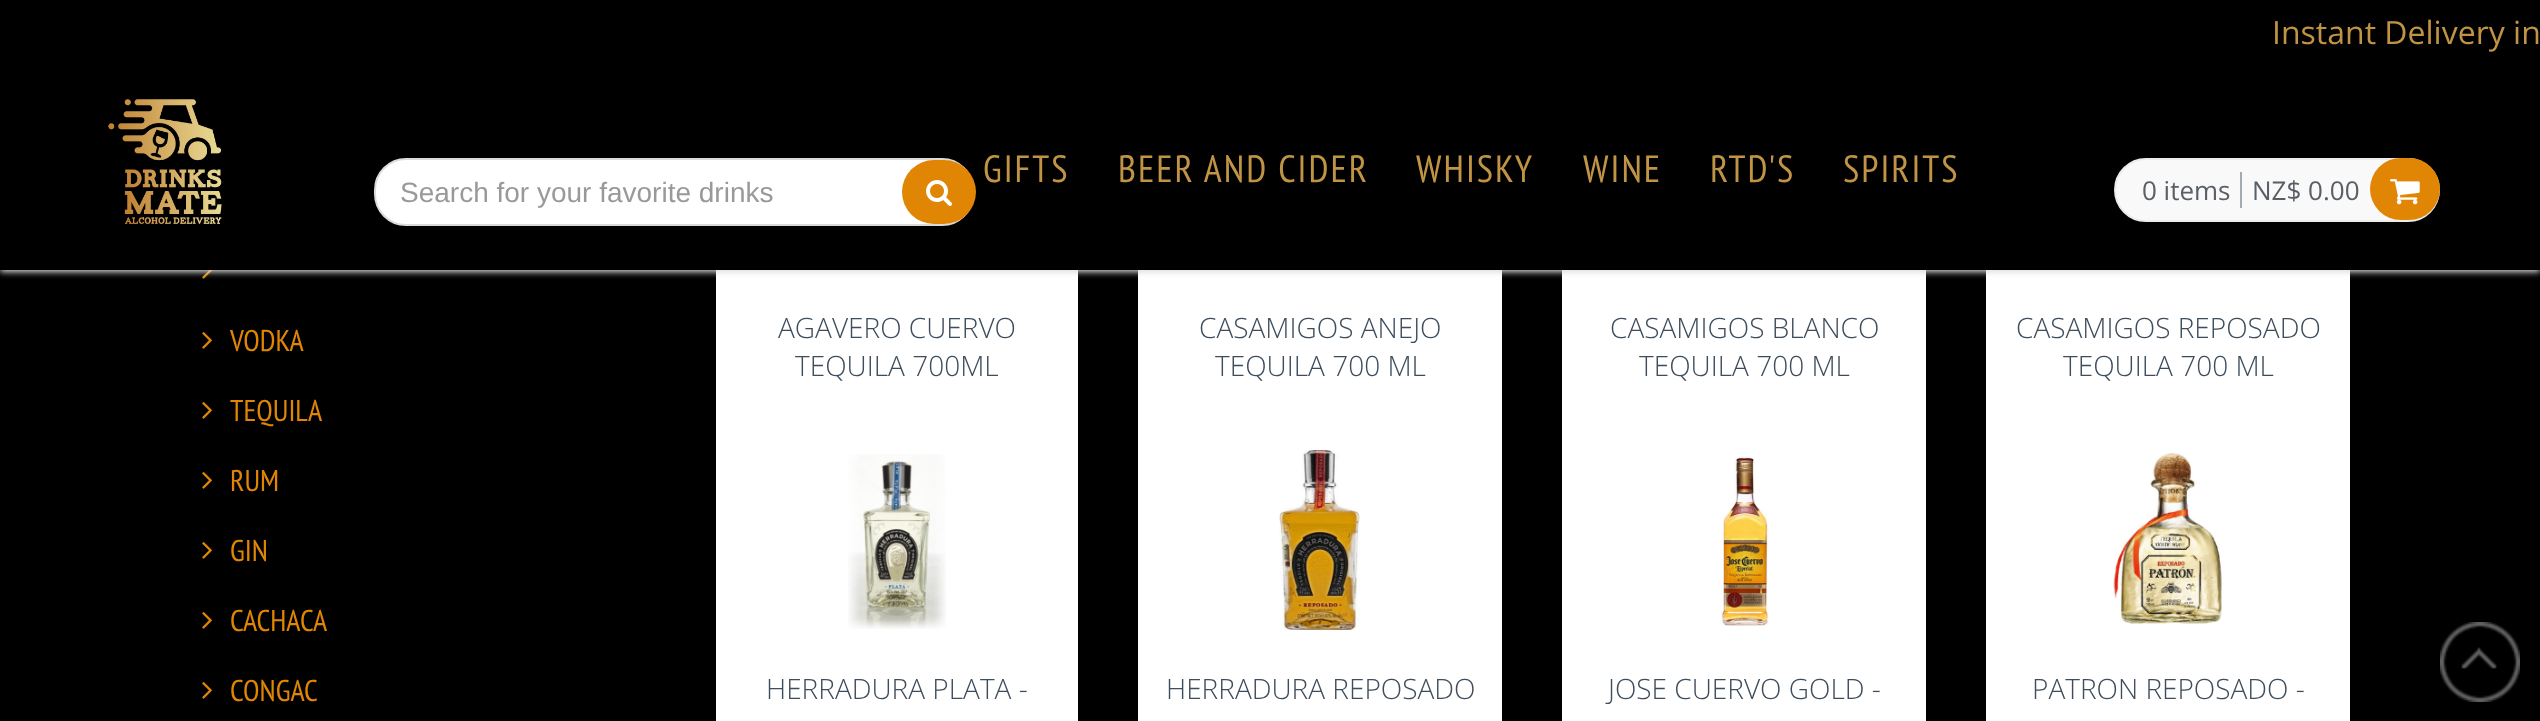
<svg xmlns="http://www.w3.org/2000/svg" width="2540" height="721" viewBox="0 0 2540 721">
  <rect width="100%" height="100%" fill="rgb(0,0,0)"/>
  <image x="202" y="270" width="10" height="9" href="pic4.png"/>
  <rect x="716" y="270" width="362" height="451" fill="rgb(255,255,255)"/>
  <rect x="1138" y="270" width="364" height="451" fill="rgb(255,255,255)"/>
  <rect x="1562" y="270" width="364" height="451" fill="rgb(255,255,255)"/>
  <rect x="1986" y="270" width="364" height="451" fill="rgb(255,255,255)"/>
  <rect x="0" y="2" width="2540" height="270" fill="rgb(221,221,221)" filter="blur(3px)"/>
  <rect x="0" y="0" width="2540" height="270" fill="rgb(0,0,0)"/>
  <text x="2272" y="44" font-family="Open Sans" font-size="32" fill="rgb(193,148,69)">Instant Delivery in</text>
  <image x="108" y="99" width="114" height="125" href="pic1.png"/>
  <g font-family="PT Sans Narrow" font-size="38" letter-spacing="2" fill="rgb(193,148,69)">
    <text x="983" y="182">GIFTS</text>
    <text x="1118" y="182">BEER AND CIDER</text>
    <text x="1416" y="182">WHISKY</text>
    <text x="1583" y="182">WINE</text>
    <text x="1710" y="182">RTD'S</text>
    <text x="1843" y="182">SPIRITS</text>
  </g>
  <rect x="375" y="159" width="598" height="66" rx="31" fill="rgb(255,255,255)" stroke="rgb(219,219,219)" stroke-width="2"/>
  <text x="400" y="202" font-family="Liberation Sans" font-size="28" fill="rgb(153,153,153)">Search for your favorite drinks</text>
  <rect x="902" y="160" width="74" height="64" rx="32" fill="rgb(225,134,4)"/>
  <image x="926" y="180" width="26" height="26" href="pic2.png"/>
  <rect x="2115" y="159" width="324" height="62" rx="31" fill="rgb(249,249,249)" stroke="rgb(236,236,236)" stroke-width="2"/>
  <g font-family="Open Sans" font-size="26" fill="rgb(89,95,101)">
    <text x="2142" y="200">0 items</text>
    <text x="2252" y="200">NZ$ 0.00</text>
  </g>
  <rect x="2240" y="172" width="2" height="36" fill="rgb(165,170,176)"/>
  <rect x="2370" y="158" width="70" height="62" rx="31" fill="rgb(225,134,4)"/>
  <image x="2390" y="179" width="30" height="26" href="pic3.png"/>
  <image x="202" y="332" width="10" height="17" href="pic5.png"/>
  <text x="230" y="351" font-family="PT Sans Narrow" font-size="30" fill="rgb(225,134,4)">VODKA</text>
  <image x="202" y="402" width="10" height="17" href="pic5.png"/>
  <text x="230" y="421" font-family="PT Sans Narrow" font-size="30" fill="rgb(225,134,4)">TEQUILA</text>
  <image x="202" y="472" width="10" height="17" href="pic5.png"/>
  <text x="230" y="491" font-family="PT Sans Narrow" font-size="30" fill="rgb(225,134,4)">RUM</text>
  <image x="202" y="542" width="10" height="17" href="pic5.png"/>
  <text x="230" y="561" font-family="PT Sans Narrow" font-size="30" fill="rgb(225,134,4)">GIN</text>
  <image x="202" y="612" width="10" height="17" href="pic5.png"/>
  <text x="230" y="631" font-family="PT Sans Narrow" font-size="30" fill="rgb(225,134,4)">CACHACA</text>
  <image x="202" y="682" width="10" height="17" href="pic5.png"/>
  <text x="230" y="701" font-family="PT Sans Narrow" font-size="30" fill="rgb(225,134,4)">CONGAC</text>
  <g font-family="Open Sans" font-size="28" font-weight="300" fill="rgb(62,77,92)">
    <text x="778" y="338">AGAVERO CUERVO</text>
    <text x="795" y="376">TEQUILA 700ML</text>
    <text x="1199" y="338">CASAMIGOS ANEJO</text>
    <text x="1215" y="376">TEQUILA 700 ML</text>
    <text x="1610" y="338">CASAMIGOS BLANCO</text>
    <text x="1639" y="376">TEQUILA 700 ML</text>
    <text x="2016" y="338">CASAMIGOS REPOSADO</text>
    <text x="2063" y="376">TEQUILA 700 ML</text>
  </g>
  <image x="848" y="454" width="98" height="175" href="pic6.png"/>
  <text x="766" y="699" font-family="Open Sans" font-size="28" font-weight="300" fill="rgb(62,77,92)">HERRADURA PLATA -</text>
  <image x="1279" y="450" width="81" height="180" href="pic7.png"/>
  <text x="1166" y="699" font-family="Open Sans" font-size="28" font-weight="300" fill="rgb(62,77,92)">HERRADURA REPOSADO</text>
  <image x="1721" y="456" width="48" height="170" href="pic8.png"/>
  <text x="1608" y="699" font-family="Open Sans" font-size="28" font-weight="300" fill="rgb(62,77,92)">JOSE CUERVO GOLD -</text>
  <image x="2113" y="452" width="109" height="172" href="pic9.png"/>
  <text x="2032" y="699" font-family="Open Sans" font-size="28" font-weight="300" fill="rgb(62,77,92)">PATRON REPOSADO -</text>
  <image x="2440" y="622" width="80" height="80" href="pic10.png"/>
</svg>
